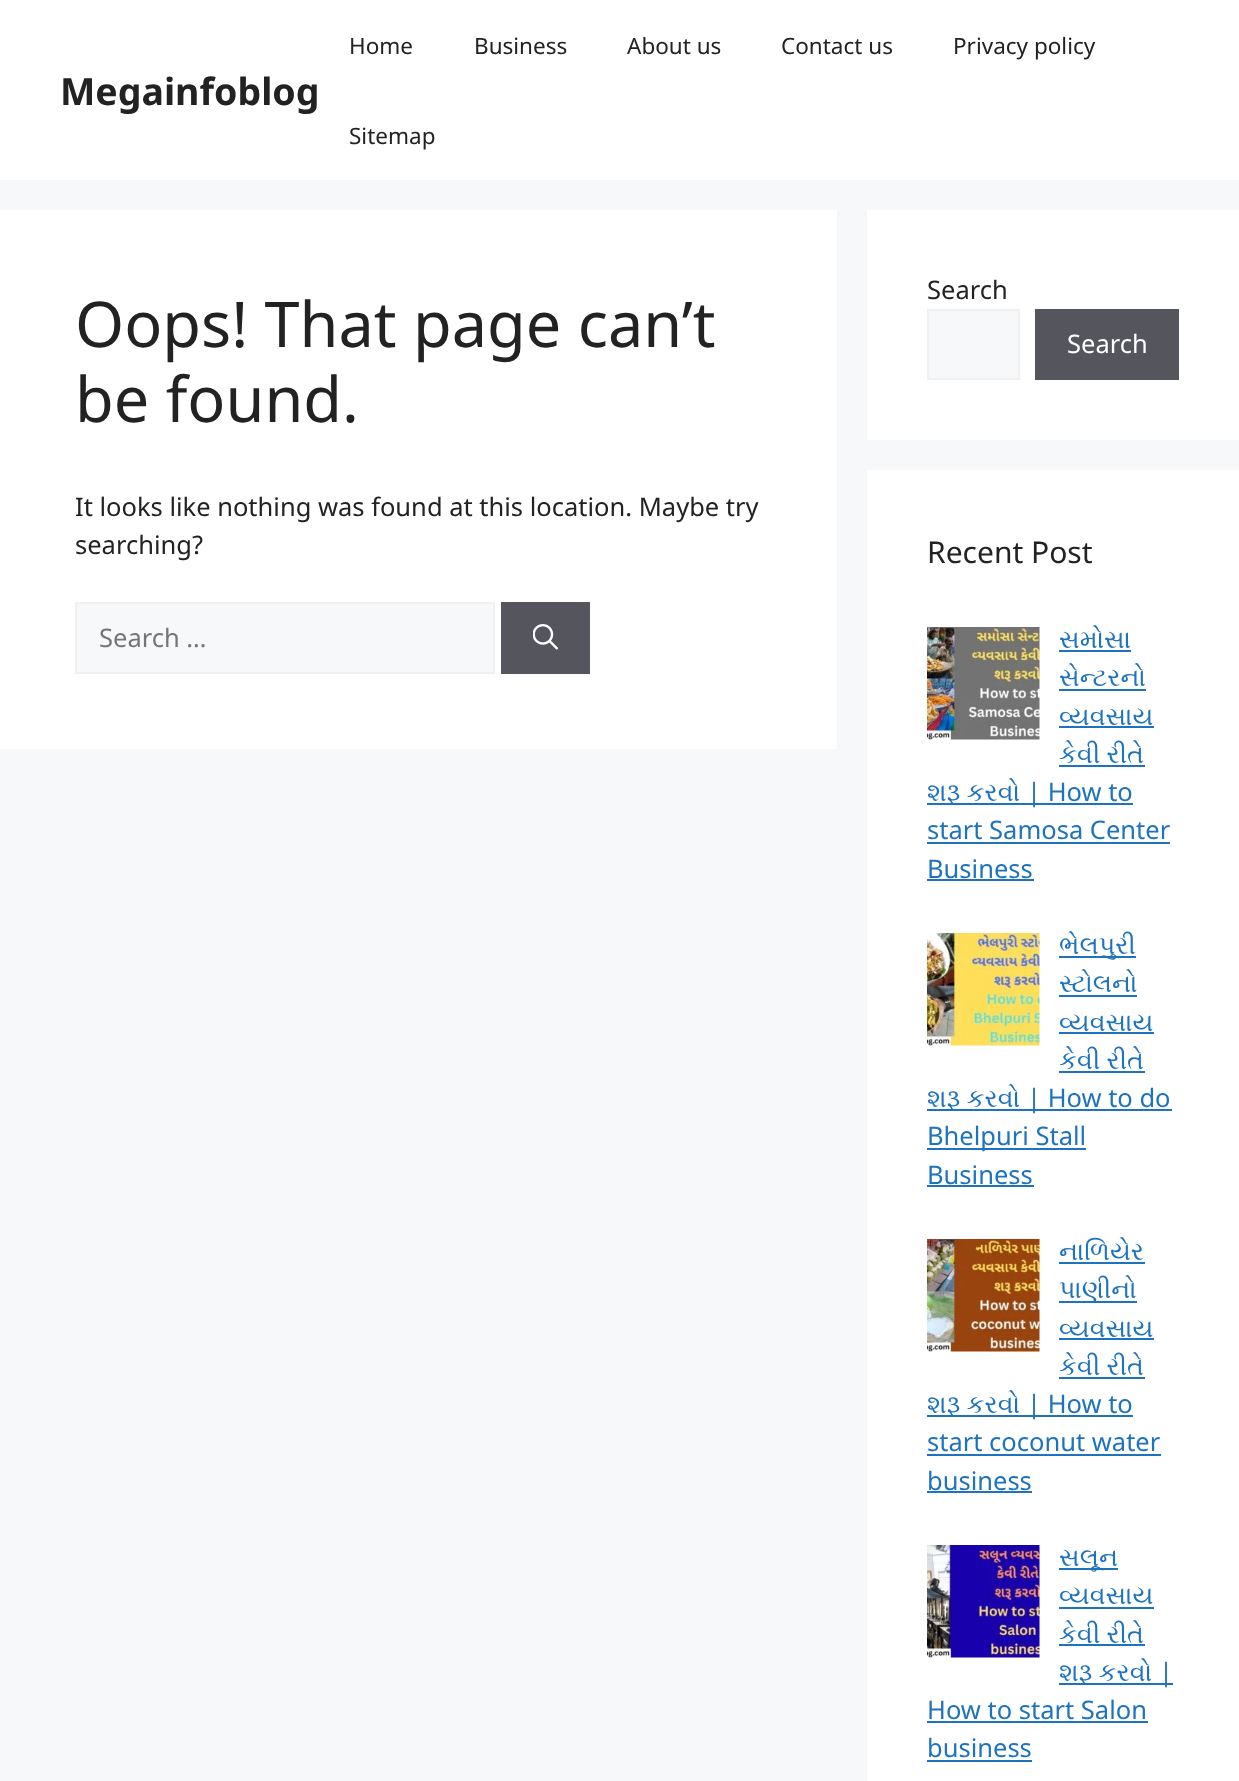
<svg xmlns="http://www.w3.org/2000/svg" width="1239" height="1781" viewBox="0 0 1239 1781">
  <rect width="100%" height="100%" fill="rgb(247,248,249)"/>
  <rect x="0" y="0" width="1239" height="180" fill="rgb(255,255,255)"/>
  <text x="60" y="105" font-family="Noto Sans" font-size="37.5" font-weight="bold" fill="rgb(34,34,34)">Megainfoblog</text>
  <g font-family="Noto Sans" font-size="22.5" fill="rgb(34,34,34)">
    <text x="349" y="54">Home</text>
    <text x="474" y="54">Business</text>
    <text x="627" y="54">About us</text>
    <text x="781" y="54">Contact us</text>
    <text x="953" y="54">Privacy policy</text>
    <text x="349" y="144">Sitemap</text>
  </g>
  <rect x="0" y="210" width="837" height="539" fill="rgb(255,255,255)"/>
  <g font-family="Noto Sans" font-size="63" fill="rgb(34,34,34)">
    <text>
      <tspan x="75" y="347">Oops! That page can’t</tspan>
      <tspan x="75" y="422">be found.</tspan>
    </text>
  </g>
  <g font-family="Noto Sans" font-size="25.5" fill="rgb(34,34,34)">
    <text>
      <tspan x="75" y="516">It looks like nothing was found at this location. Maybe try</tspan>
      <tspan x="75" y="554">searching?</tspan>
    </text>
  </g>
  <rect x="76" y="603" width="418" height="70" fill="rgb(247,248,249)" stroke="rgb(240,240,240)" stroke-width="2"/>
  <text x="99" y="647" font-family="Noto Sans" font-size="25.5" fill="rgb(117,117,117)">Search …</text>
  <rect x="501" y="602" width="89" height="72" fill="rgb(85,85,94)"/>
  <image x="533" y="624" width="25" height="26" href="pic1.png"/>
  <rect x="867" y="210" width="372" height="230" fill="rgb(255,255,255)"/>
  <text x="927" y="299" font-family="Noto Sans" font-size="25.5" fill="rgb(34,34,34)">Search</text>
  <rect x="928" y="310" width="91" height="69" fill="rgb(247,248,249)" stroke="rgb(240,240,240)" stroke-width="2"/>
  <rect x="1035" y="309" width="144" height="71" fill="rgb(85,85,94)"/>
  <text x="1067" y="353" font-family="Noto Sans" font-size="25.5" fill="rgb(255,255,255)">Search</text>
  <rect x="867" y="470" width="372" height="1311" fill="rgb(255,255,255)"/>
  <text x="927" y="563" font-family="Noto Sans" font-size="30" fill="rgb(34,34,34)">Recent Post</text>
  <image x="927" y="627" width="113" height="113" href="pic2.png"/>
  <text x="1059" y="648" font-family="FreeSerif" font-size="25.5" fill="rgb(30,115,190)">સમોસા</text>
  <rect x="1059" y="650" width="72" height="2" fill="rgb(30,115,190)"/>
  <text x="1059" y="686" font-family="FreeSerif" font-size="25.5" fill="rgb(30,115,190)">સેન્ટરનો</text>
  <rect x="1059" y="689" width="87" height="2" fill="rgb(30,115,190)"/>
  <text x="1059" y="725" font-family="FreeSerif" font-size="25.5" fill="rgb(30,115,190)">વ્યવસાય</text>
  <rect x="1059" y="726" width="95" height="2" fill="rgb(30,115,190)"/>
  <text x="1059" y="763" font-family="FreeSerif" font-size="25.5" fill="rgb(30,115,190)">કેવી રીતે</text>
  <rect x="1059" y="765" width="86" height="2" fill="rgb(30,115,190)"/>
  <rect x="927" y="803" width="206" height="2" fill="rgb(30,115,190)"/>
  <text x="927" y="801" font-family="FreeSerif" font-size="25.5" fill="rgb(30,115,190)">શરૂ કરવો</text>
  <g font-family="Noto Sans" font-size="25.5" fill="rgb(30,115,190)">
    <text x="1027" y="801">| How to</text>
    <text x="927" y="839">start Samosa Center</text>
  </g>
  <rect x="927" y="842" width="243" height="2" fill="rgb(30,115,190)"/>
  <text x="927" y="878" font-family="Noto Sans" font-size="25.5" fill="rgb(30,115,190)">Business</text>
  <rect x="927" y="879" width="107" height="2" fill="rgb(30,115,190)"/>
  <image x="927" y="933" width="113" height="113" href="pic3.png"/>
  <rect x="1059" y="956" width="77" height="2" fill="rgb(30,115,190)"/>
  <g font-family="FreeSerif" font-size="25.5" fill="rgb(30,115,190)">
    <text>
      <tspan x="1059" y="954">ભેલપુરી</tspan>
      <tspan x="1059" y="992">સ્ટોલનો</tspan>
    </text>
  </g>
  <rect x="1059" y="995" width="78" height="2" fill="rgb(30,115,190)"/>
  <text x="1059" y="1031" font-family="FreeSerif" font-size="25.5" fill="rgb(30,115,190)">વ્યવસાય</text>
  <rect x="1059" y="1032" width="95" height="2" fill="rgb(30,115,190)"/>
  <text x="1059" y="1069" font-family="FreeSerif" font-size="25.5" fill="rgb(30,115,190)">કેવી રીતે</text>
  <rect x="1059" y="1071" width="86" height="2" fill="rgb(30,115,190)"/>
  <rect x="927" y="1109" width="245" height="2" fill="rgb(30,115,190)"/>
  <text x="927" y="1107" font-family="FreeSerif" font-size="25.5" fill="rgb(30,115,190)">શરૂ કરવો</text>
  <text x="1027" y="1107" font-family="Noto Sans" font-size="25.5" fill="rgb(30,115,190)">| How to do</text>
  <rect x="927" y="1148" width="159" height="2" fill="rgb(30,115,190)"/>
  <g font-family="Noto Sans" font-size="25.5" fill="rgb(30,115,190)">
    <text>
      <tspan x="927" y="1145">Bhelpuri Stall</tspan>
      <tspan x="927" y="1184">Business</tspan>
    </text>
  </g>
  <rect x="927" y="1185" width="107" height="2" fill="rgb(30,115,190)"/>
  <image x="927" y="1239" width="113" height="113" href="pic4.png"/>
  <text x="1059" y="1260" font-family="FreeSerif" font-size="25.5" fill="rgb(30,115,190)">નાળિયેર</text>
  <rect x="1059" y="1262" width="86" height="2" fill="rgb(30,115,190)"/>
  <rect x="1059" y="1301" width="78" height="2" fill="rgb(30,115,190)"/>
  <g font-family="FreeSerif" font-size="25.5" fill="rgb(30,115,190)">
    <text>
      <tspan x="1059" y="1298">પાણીનો</tspan>
      <tspan x="1059" y="1337">વ્યવસાય</tspan>
    </text>
  </g>
  <rect x="1059" y="1338" width="95" height="2" fill="rgb(30,115,190)"/>
  <text x="1059" y="1375" font-family="FreeSerif" font-size="25.5" fill="rgb(30,115,190)">કેવી રીતે</text>
  <rect x="1059" y="1377" width="86" height="2" fill="rgb(30,115,190)"/>
  <rect x="927" y="1415" width="206" height="2" fill="rgb(30,115,190)"/>
  <text x="927" y="1413" font-family="FreeSerif" font-size="25.5" fill="rgb(30,115,190)">શરૂ કરવો</text>
  <g font-family="Noto Sans" font-size="25.5" fill="rgb(30,115,190)">
    <text x="1027" y="1413">| How to</text>
    <text x="927" y="1451">start coconut water</text>
  </g>
  <rect x="927" y="1454" width="234" height="2" fill="rgb(30,115,190)"/>
  <text x="927" y="1490" font-family="Noto Sans" font-size="25.5" fill="rgb(30,115,190)">business</text>
  <rect x="927" y="1491" width="105" height="2" fill="rgb(30,115,190)"/>
  <image x="927" y="1545" width="113" height="113" href="pic5.png"/>
  <rect x="1059" y="1568" width="59" height="2" fill="rgb(30,115,190)"/>
  <g font-family="FreeSerif" font-size="25.5" fill="rgb(30,115,190)">
    <text>
      <tspan x="1059" y="1566">સલૂન</tspan>
      <tspan x="1059" y="1604">વ્યવસાય</tspan>
    </text>
  </g>
  <rect x="1059" y="1607" width="95" height="2" fill="rgb(30,115,190)"/>
  <text x="1059" y="1643" font-family="FreeSerif" font-size="25.5" fill="rgb(30,115,190)">કેવી રીતે</text>
  <rect x="1059" y="1644" width="86" height="2" fill="rgb(30,115,190)"/>
  <rect x="1059" y="1683" width="114" height="2" fill="rgb(30,115,190)"/>
  <text x="1059" y="1681" font-family="FreeSerif" font-size="25.5" fill="rgb(30,115,190)">શરૂ કરવો</text>
  <g font-family="Noto Sans" font-size="25.5" fill="rgb(30,115,190)">
    <text x="1159" y="1681">|</text>
    <text x="927" y="1719">How to start Salon</text>
  </g>
  <rect x="927" y="1721" width="221" height="2" fill="rgb(30,115,190)"/>
  <text x="927" y="1757" font-family="Noto Sans" font-size="25.5" fill="rgb(30,115,190)">business</text>
  <rect x="927" y="1760" width="105" height="2" fill="rgb(30,115,190)"/>
</svg>
